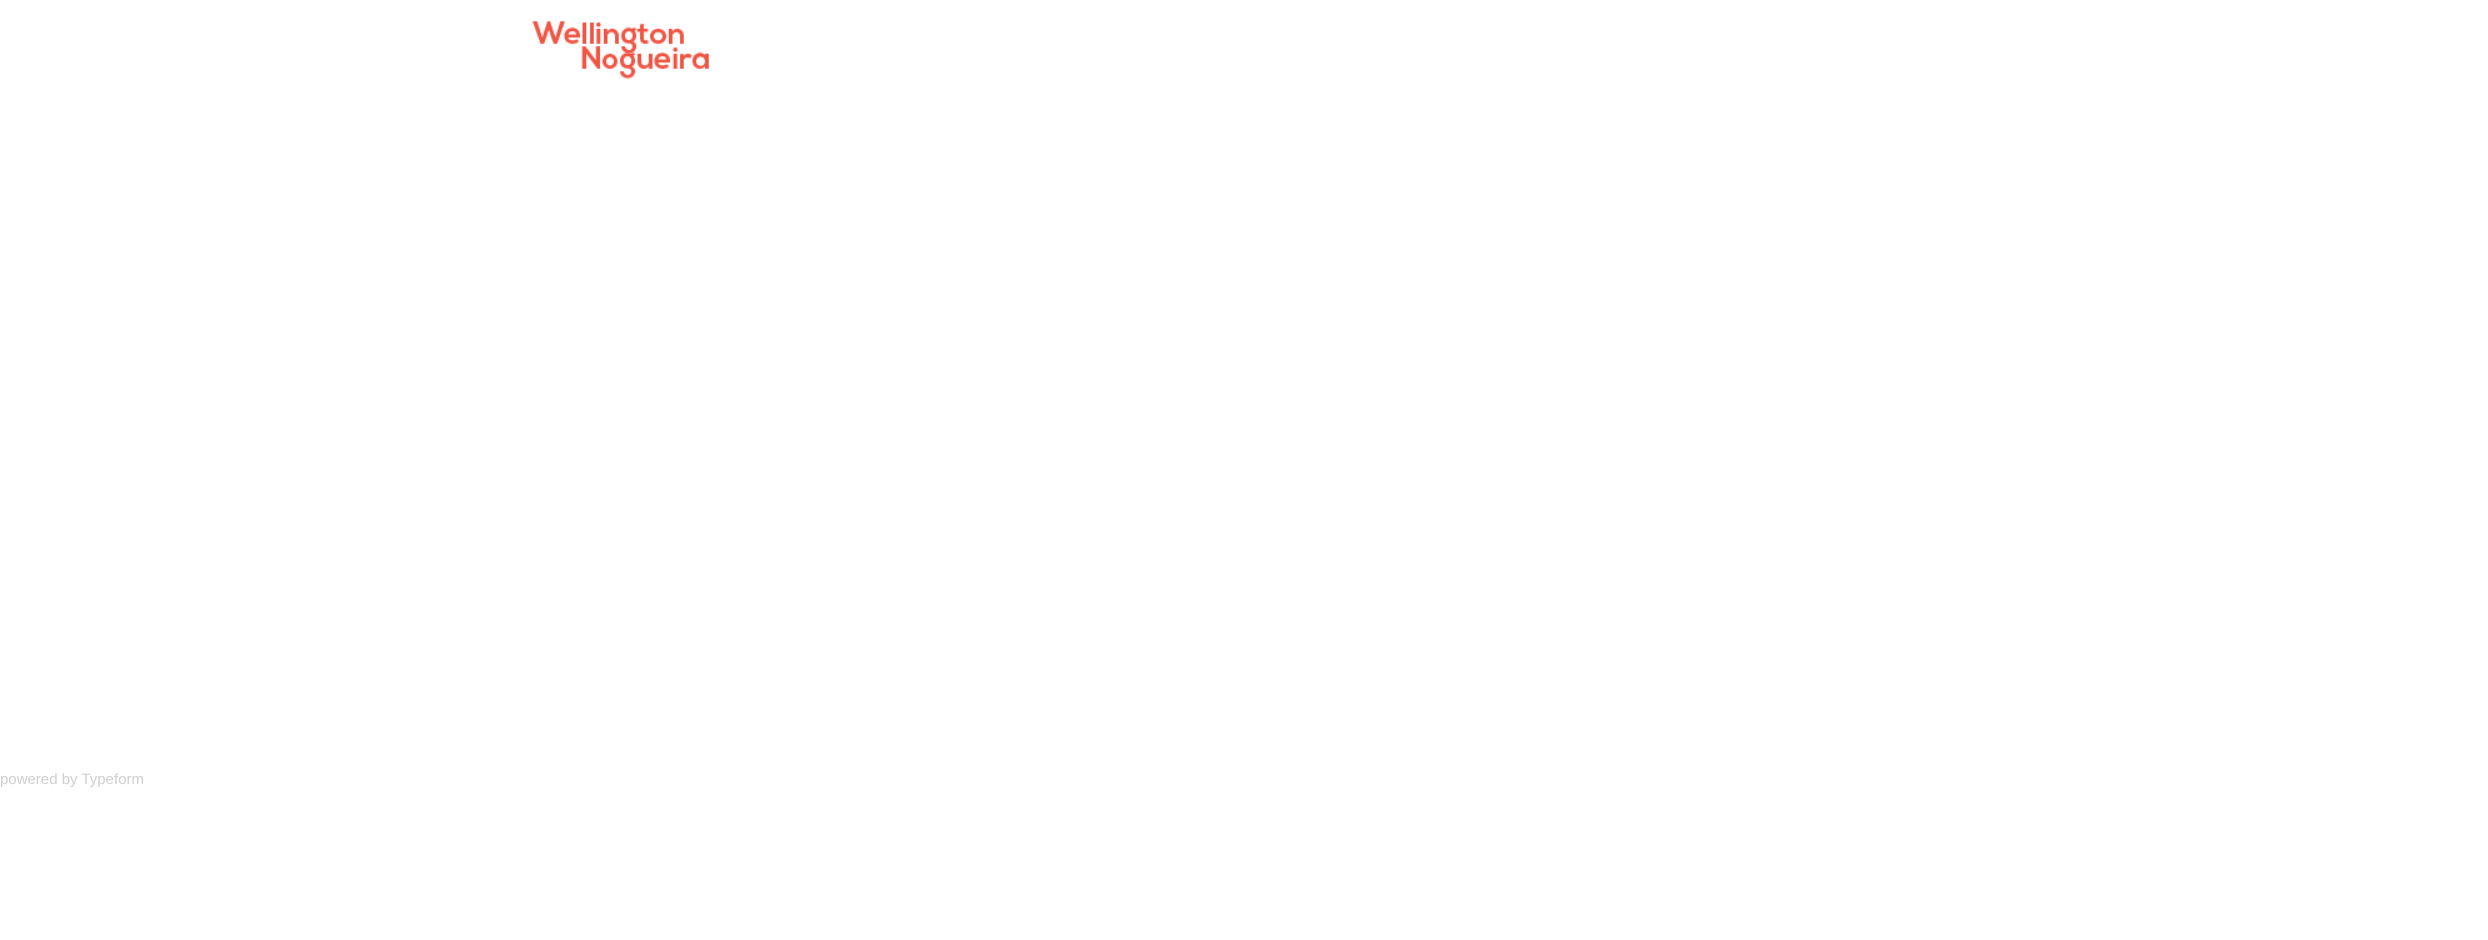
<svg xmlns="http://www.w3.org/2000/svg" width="2488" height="940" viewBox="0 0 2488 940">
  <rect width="100%" height="100%" fill="rgb(255,255,255)"/>
  <image x="532" y="21" width="177" height="58" href="pic1.png"/>
  <text x="0" y="784" font-family="Liberation Sans" font-size="15" fill="rgb(208,208,208)">powered by Typeform</text>
</svg>
